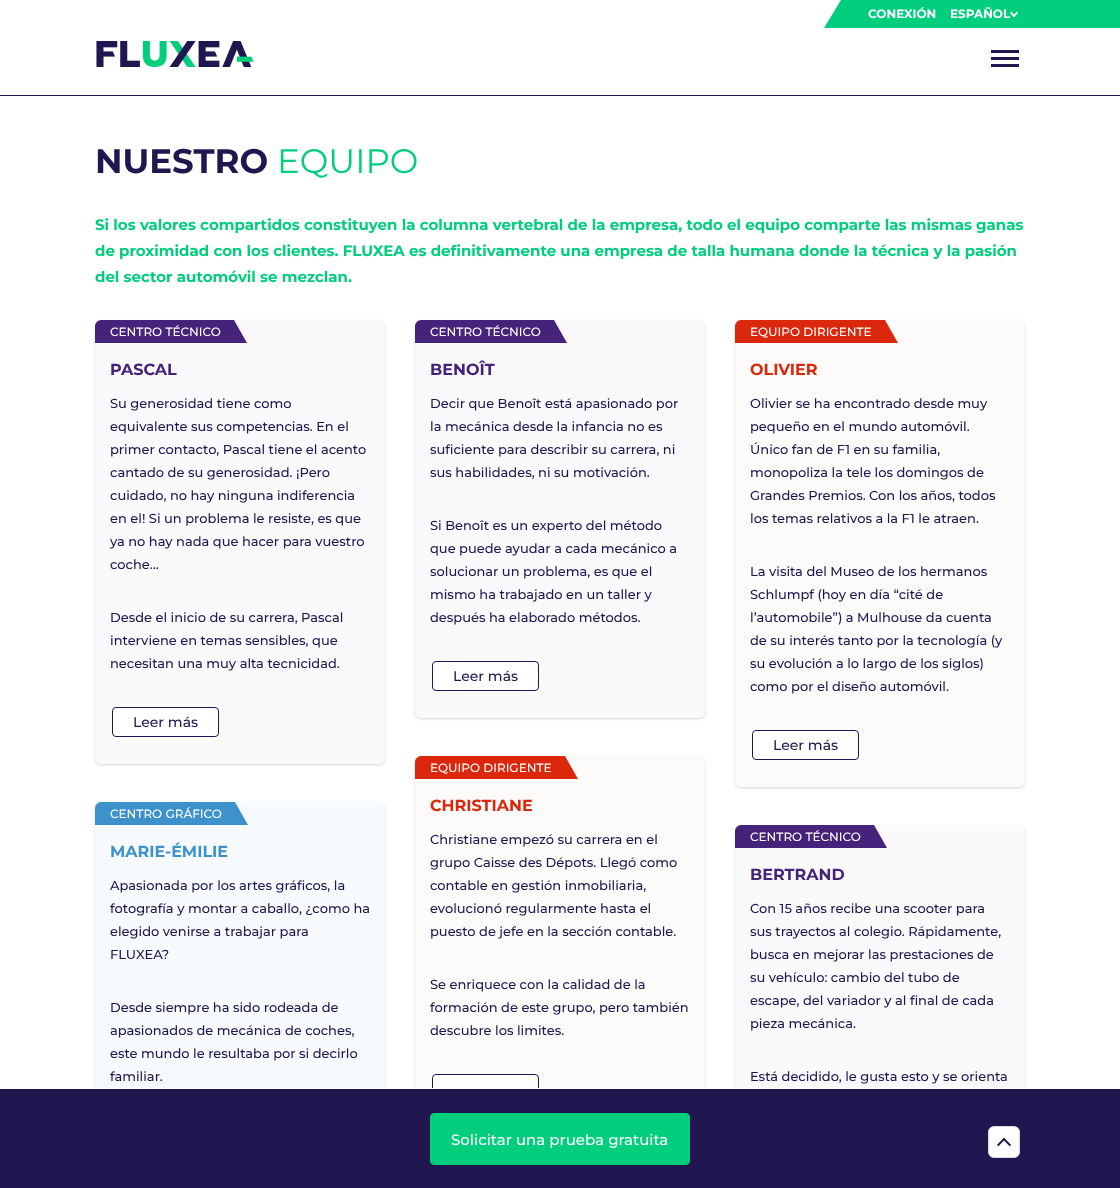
<svg xmlns="http://www.w3.org/2000/svg" width="1120" height="1188" viewBox="0 0 1120 1188">
  <rect width="100%" height="100%" fill="rgb(255,255,255)"/>
  <rect x="0" y="95" width="1120" height="1" fill="rgb(32,23,81)"/>
  <rect x="1032" y="0" width="88" height="28" fill="rgb(0,206,124)"/>
  <path d="M841 0H1048L1032 28H824Z" fill="rgb(0,206,124)"/>
  <g font-family="Montserrat" font-size="12" font-weight="bold" fill="rgb(255,255,255)">
    <text x="868" y="18">CONEXIÓN</text>
    <text x="950" y="18">ESPAÑOL</text>
  </g>
  <path d="M1017 11.5L1018 13L1014 17L1012.5 16Z" fill="rgb(255,255,255)"/>
  <path d="M1011 11.5L1015.5 16L1014 17L1010 13Z" fill="rgb(255,255,255)"/>
  <image x="96" y="41" width="158" height="26" href="pic1.png"/>
  <rect x="991" y="50" width="28" height="3" fill="rgb(32,23,81)"/>
  <rect x="991" y="57" width="28" height="3" fill="rgb(32,23,81)"/>
  <rect x="991" y="64" width="28" height="3" fill="rgb(32,23,81)"/>
  <text x="95" y="173" font-family="Montserrat" font-size="34" font-weight="bold" fill="rgb(32,23,81)">NUESTRO</text>
  <text x="277" y="173" font-family="Montserrat" font-size="34" fill="rgb(0,206,124)">EQUIPO</text>
  <g font-family="Montserrat" font-size="15" font-weight="bold" fill="rgb(0,206,124)">
    <text>
      <tspan x="95" y="230">Si los valores compartidos constituyen la columna vertebral de la empresa, todo el equipo comparte las mismas ganas</tspan>
      <tspan x="95" y="256">de proximidad con los clientes. FLUXEA es definitivamente una empresa de talla humana donde la técnica y la pasión</tspan>
      <tspan x="95" y="282">del sector automóvil se mezclan.</tspan>
    </text>
  </g>
  <rect x="95" y="321" width="290" height="444" rx="6" fill="rgba(0,0,0,0.16)" filter="blur(1px)"/>
  <rect x="95" y="320" width="290" height="444" rx="6" fill="rgb(250,249,251)"/>
  <path d="M101 320C98 320 95 323 95 326V343H247L234 320Z" fill="rgb(70,35,122)"/>
  <text x="110" y="336" font-family="Montserrat" font-size="12" font-weight="500" fill="rgb(255,255,255)">CENTRO TÉCNICO</text>
  <text x="110" y="375" font-family="Montserrat" font-size="16" font-weight="bold" fill="rgb(70,35,122)">PASCAL</text>
  <g font-family="Montserrat" font-size="13" font-weight="500" fill="rgb(32,23,81)">
    <text>
      <tspan x="110" y="408">Su generosidad tiene como</tspan>
      <tspan x="110" y="431">equivalente sus competencias. En el</tspan>
      <tspan x="110" y="454">primer contacto, Pascal tiene el acento</tspan>
      <tspan x="110" y="477">cantado de su generosidad. ¡Pero</tspan>
      <tspan x="110" y="500">cuidado, no hay ninguna indiferencia</tspan>
      <tspan x="110" y="523">en el! Si un problema le resiste, es que</tspan>
      <tspan x="110" y="546">ya no hay nada que hacer para vuestro</tspan>
      <tspan x="110" y="569">coche…</tspan>
    </text>
    <text>
      <tspan x="110" y="622">Desde el inicio de su carrera, Pascal</tspan>
      <tspan x="110" y="645">interviene en temas sensibles, que</tspan>
      <tspan x="110" y="668">necesitan una muy alta tecnicidad.</tspan>
    </text>
  </g>
  <rect x="112.5" y="707.5" width="106" height="29" rx="3.5" fill="rgb(255,255,255)" stroke="rgb(32,23,81)"/>
  <text x="133" y="727" font-family="Montserrat" font-size="14" font-weight="500" fill="rgb(32,23,81)">Leer más</text>
  <rect x="415" y="321" width="290" height="398" rx="6" fill="rgba(0,0,0,0.16)" filter="blur(1px)"/>
  <rect x="415" y="320" width="290" height="398" rx="6" fill="rgb(250,249,251)"/>
  <path d="M421 320C418 320 415 323 415 326V343H567L554 320Z" fill="rgb(70,35,122)"/>
  <text x="430" y="336" font-family="Montserrat" font-size="12" font-weight="500" fill="rgb(255,255,255)">CENTRO TÉCNICO</text>
  <text x="430" y="375" font-family="Montserrat" font-size="16" font-weight="bold" fill="rgb(70,35,122)">BENOÎT</text>
  <g font-family="Montserrat" font-size="13" font-weight="500" fill="rgb(32,23,81)">
    <text>
      <tspan x="430" y="408">Decir que Benoît está apasionado por</tspan>
      <tspan x="430" y="431">la mecánica desde la infancia no es</tspan>
      <tspan x="430" y="454">suficiente para describir su carrera, ni</tspan>
      <tspan x="430" y="477">sus habilidades, ni su motivación.</tspan>
    </text>
    <text>
      <tspan x="430" y="530">Si Benoît es un experto del método</tspan>
      <tspan x="430" y="553">que puede ayudar a cada mecánico a</tspan>
      <tspan x="430" y="576">solucionar un problema, es que el</tspan>
      <tspan x="430" y="599">mismo ha trabajado en un taller y</tspan>
      <tspan x="430" y="622">después ha elaborado métodos.</tspan>
    </text>
  </g>
  <rect x="432.5" y="661.5" width="106" height="29" rx="3.5" fill="rgb(255,255,255)" stroke="rgb(32,23,81)"/>
  <text x="453" y="681" font-family="Montserrat" font-size="14" font-weight="500" fill="rgb(32,23,81)">Leer más</text>
  <rect x="735" y="321" width="290" height="467" rx="6" fill="rgba(0,0,0,0.16)" filter="blur(1px)"/>
  <rect x="735" y="320" width="290" height="467" rx="6" fill="rgb(253,251,249)"/>
  <path d="M741 320C738 320 735 323 735 326V343H898L885 320Z" fill="rgb(219,39,11)"/>
  <text x="750" y="336" font-family="Montserrat" font-size="12" font-weight="500" fill="rgb(255,255,255)">EQUIPO DIRIGENTE</text>
  <text x="750" y="375" font-family="Montserrat" font-size="16" font-weight="bold" fill="rgb(219,39,11)">OLIVIER</text>
  <g font-family="Montserrat" font-size="13" font-weight="500" fill="rgb(32,23,81)">
    <text>
      <tspan x="750" y="408">Olivier se ha encontrado desde muy</tspan>
      <tspan x="750" y="431">pequeño en el mundo automóvil.</tspan>
      <tspan x="750" y="454">Único fan de F1 en su familia,</tspan>
      <tspan x="750" y="477">monopoliza la tele los domingos de</tspan>
      <tspan x="750" y="500">Grandes Premios. Con los años, todos</tspan>
      <tspan x="750" y="523">los temas relativos a la F1 le atraen.</tspan>
    </text>
    <text>
      <tspan x="750" y="576">La visita del Museo de los hermanos</tspan>
      <tspan x="750" y="599">Schlumpf (hoy en día “cité de</tspan>
      <tspan x="750" y="622">l’automobile”) a Mulhouse da cuenta</tspan>
      <tspan x="750" y="645">de su interés tanto por la tecnología (y</tspan>
      <tspan x="750" y="668">su evolución a lo largo de los siglos)</tspan>
      <tspan x="750" y="691">como por el diseño automóvil.</tspan>
    </text>
  </g>
  <rect x="752.5" y="730.5" width="106" height="29" rx="3.5" fill="rgb(255,255,255)" stroke="rgb(32,23,81)"/>
  <text x="773" y="750" font-family="Montserrat" font-size="14" font-weight="500" fill="rgb(32,23,81)">Leer más</text>
  <rect x="95" y="803" width="290" height="375" rx="6" fill="rgba(0,0,0,0.16)" filter="blur(1px)"/>
  <rect x="95" y="802" width="290" height="375" rx="6" fill="rgb(248,251,253)"/>
  <path d="M101 802C98 802 95 805 95 808V825H248L235 802Z" fill="rgb(62,146,204)"/>
  <text x="110" y="818" font-family="Montserrat" font-size="12" font-weight="500" fill="rgb(255,255,255)">CENTRO GRÁFICO</text>
  <text x="110" y="857" font-family="Montserrat" font-size="16" font-weight="bold" fill="rgb(62,146,204)">MARIE-ÉMILIE</text>
  <g font-family="Montserrat" font-size="13" font-weight="500" fill="rgb(32,23,81)">
    <text>
      <tspan x="110" y="890">Apasionada por los artes gráficos, la</tspan>
      <tspan x="110" y="913">fotografía y montar a caballo, ¿como ha</tspan>
      <tspan x="110" y="936">elegido venirse a trabajar para</tspan>
      <tspan x="110" y="959">FLUXEA?</tspan>
    </text>
    <text>
      <tspan x="110" y="1012">Desde siempre ha sido rodeada de</tspan>
      <tspan x="110" y="1035">apasionados de mecánica de coches,</tspan>
      <tspan x="110" y="1058">este mundo le resultaba por si decirlo</tspan>
      <tspan x="110" y="1081">familiar.</tspan>
    </text>
  </g>
  <rect x="415" y="757" width="290" height="375" rx="6" fill="rgba(0,0,0,0.16)" filter="blur(1px)"/>
  <rect x="415" y="756" width="290" height="375" rx="6" fill="rgb(253,251,249)"/>
  <path d="M421 756C418 756 415 759 415 762V779H578L565 756Z" fill="rgb(219,39,11)"/>
  <text x="430" y="772" font-family="Montserrat" font-size="12" font-weight="500" fill="rgb(255,255,255)">EQUIPO DIRIGENTE</text>
  <text x="430" y="811" font-family="Montserrat" font-size="16" font-weight="bold" fill="rgb(219,39,11)">CHRISTIANE</text>
  <g font-family="Montserrat" font-size="13" font-weight="500" fill="rgb(32,23,81)">
    <text>
      <tspan x="430" y="844">Christiane empezó su carrera en el</tspan>
      <tspan x="430" y="867">grupo Caisse des Dépots. Llegó como</tspan>
      <tspan x="430" y="890">contable en gestión inmobiliaria,</tspan>
      <tspan x="430" y="913">evolucionó regularmente hasta el</tspan>
      <tspan x="430" y="936">puesto de jefe en la sección contable.</tspan>
    </text>
    <text>
      <tspan x="430" y="989">Se enriquece con la calidad de la</tspan>
      <tspan x="430" y="1012">formación de este grupo, pero también</tspan>
      <tspan x="430" y="1035">descubre los limites.</tspan>
    </text>
  </g>
  <rect x="432.5" y="1074.5" width="106" height="29" rx="3.5" fill="rgb(255,255,255)" stroke="rgb(32,23,81)"/>
  <rect x="735" y="826" width="290" height="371" rx="6" fill="rgba(0,0,0,0.16)" filter="blur(1px)"/>
  <rect x="735" y="825" width="290" height="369" rx="6" fill="rgb(250,249,251)"/>
  <path d="M741 825C738 825 735 828 735 831V848H887L874 825Z" fill="rgb(70,35,122)"/>
  <text x="750" y="841" font-family="Montserrat" font-size="12" font-weight="500" fill="rgb(255,255,255)">CENTRO TÉCNICO</text>
  <text x="750" y="880" font-family="Montserrat" font-size="16" font-weight="bold" fill="rgb(70,35,122)">BERTRAND</text>
  <g font-family="Montserrat" font-size="13" font-weight="500" fill="rgb(32,23,81)">
    <text>
      <tspan x="750" y="913">Con 15 años recibe una scooter para</tspan>
      <tspan x="750" y="936">sus trayectos al colegio. Rápidamente,</tspan>
      <tspan x="750" y="959">busca en mejorar las prestaciones de</tspan>
      <tspan x="750" y="982">su vehículo: cambio del tubo de</tspan>
      <tspan x="750" y="1005">escape, del variador y al final de cada</tspan>
      <tspan x="750" y="1028">pieza mecánica.</tspan>
    </text>
    <text x="750" y="1081">Está decidido, le gusta esto y se orienta</text>
  </g>
  <rect x="0" y="1089" width="1120" height="99" fill="rgb(32,23,81)"/>
  <rect x="94" y="1088" width="932" height="1" fill="rgb(255,255,255)"/>
  <rect x="430.5" y="1113.5" width="259" height="51" rx="3.5" fill="rgb(0,206,124)" stroke="rgb(0,206,124)"/>
  <text x="451" y="1145" font-family="Montserrat" font-size="15" font-weight="500" fill="rgb(255,255,255)">Solicitar una prueba gratuita</text>
  <rect x="988.5" y="1126.5" width="31" height="31" rx="5.5" fill="rgb(255,255,255)" stroke="rgb(219,219,222)"/>
  <image x="997" y="1137" width="14" height="10" href="pic2.png"/>
</svg>
